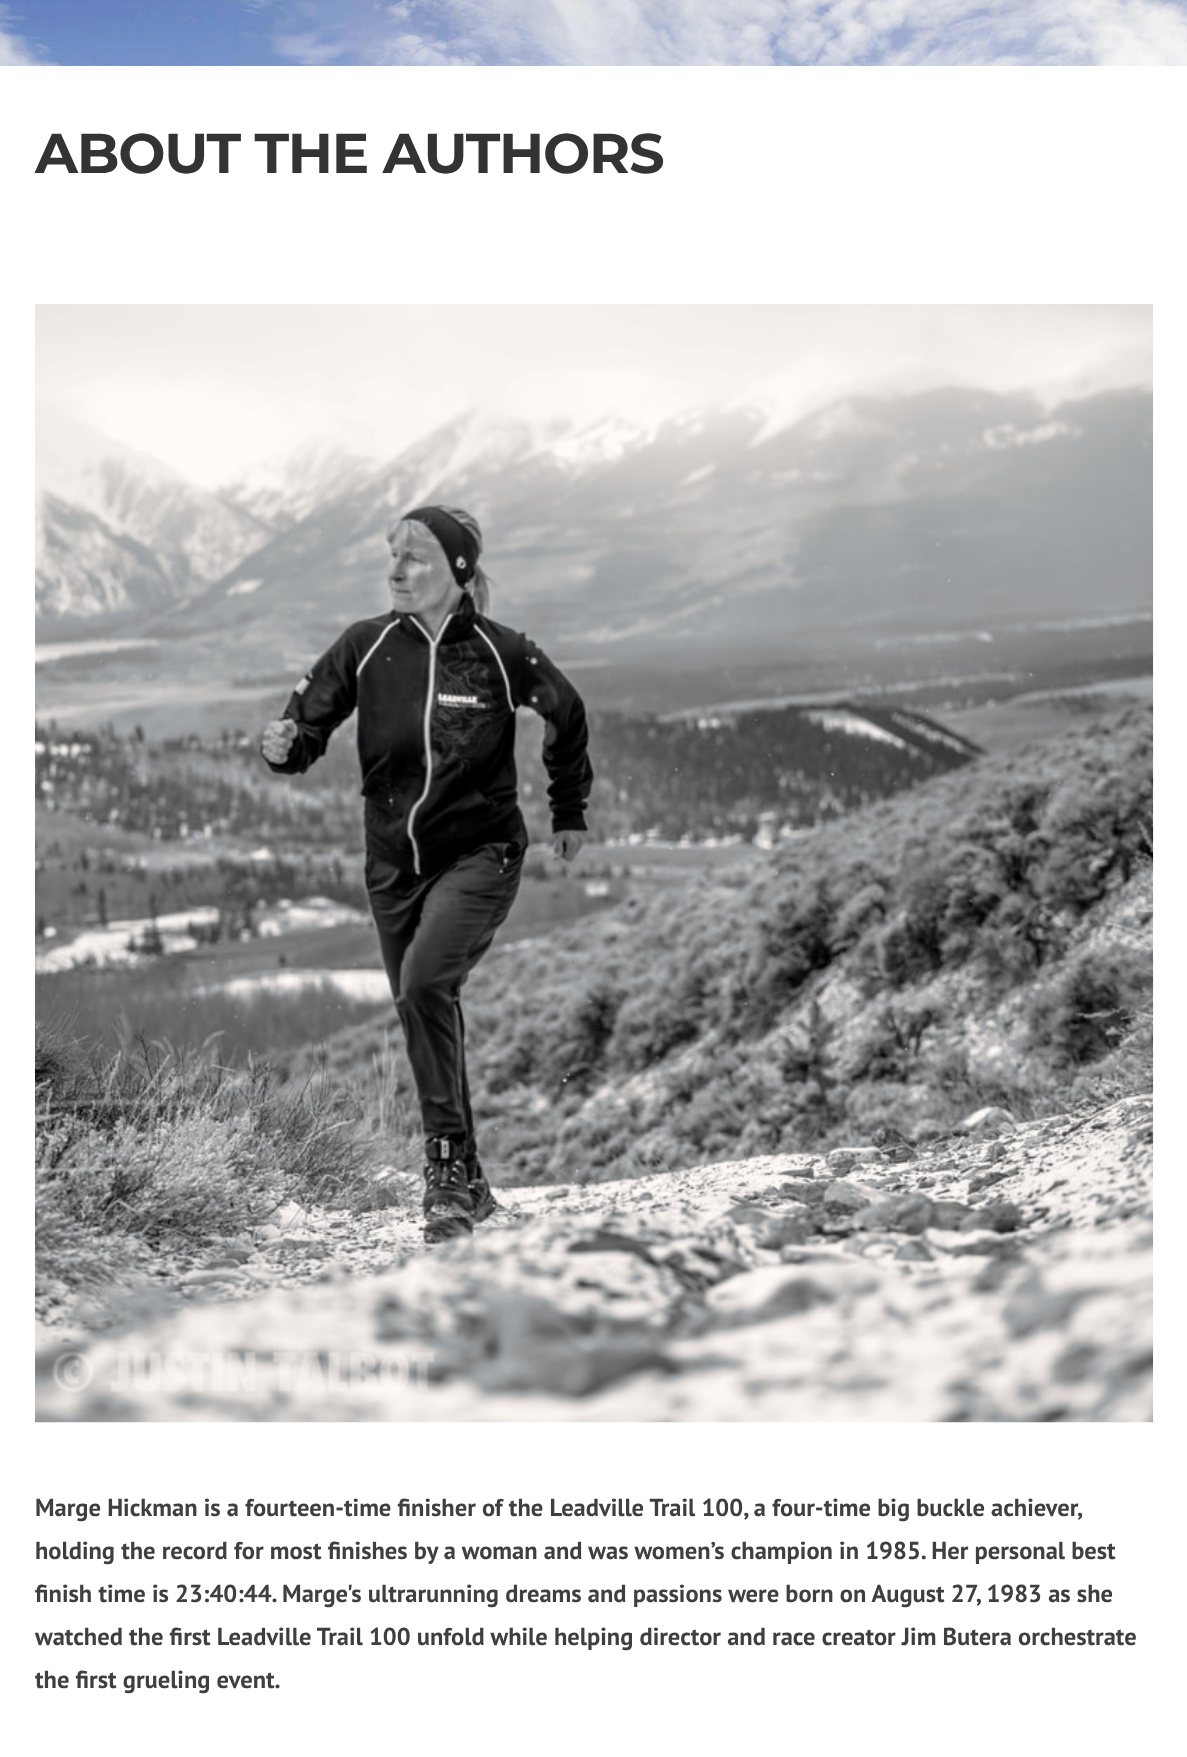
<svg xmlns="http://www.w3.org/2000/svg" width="1187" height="1757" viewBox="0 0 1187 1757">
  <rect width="100%" height="100%" fill="rgb(255,255,255)"/>
  <image x="0" y="0" width="1187" height="66" href="pic1.png"/>
  <text x="35" y="173" font-family="Montserrat" font-size="56" font-weight="100" letter-spacing="-1.25" fill="rgb(51,51,51)">ABOUT THE AUTHORS</text>
  <image x="35" y="304" width="1119" height="1119" href="pic2.png"/>
  <g font-family="PT Sans" font-size="24.5" font-weight="bold" fill="rgb(63,63,63)">
    <text>
      <tspan x="35" y="1516">Marge Hickman is a fourteen-time finisher of the Leadville Trail 100, a four-time big buckle achiever,</tspan>
      <tspan x="35" y="1559">holding the record for most finishes by a woman and was women’s champion in 1985. Her personal best</tspan>
      <tspan x="35" y="1602">finish time is 23:40:44. Marge's ultrarunning dreams and passions were born on August 27, 1983 as she</tspan>
      <tspan x="35" y="1645">watched the first Leadville Trail 100 unfold while helping director and race creator Jim Butera orchestrate</tspan>
      <tspan x="35" y="1688">the first grueling event.</tspan>
    </text>
  </g>
</svg>
